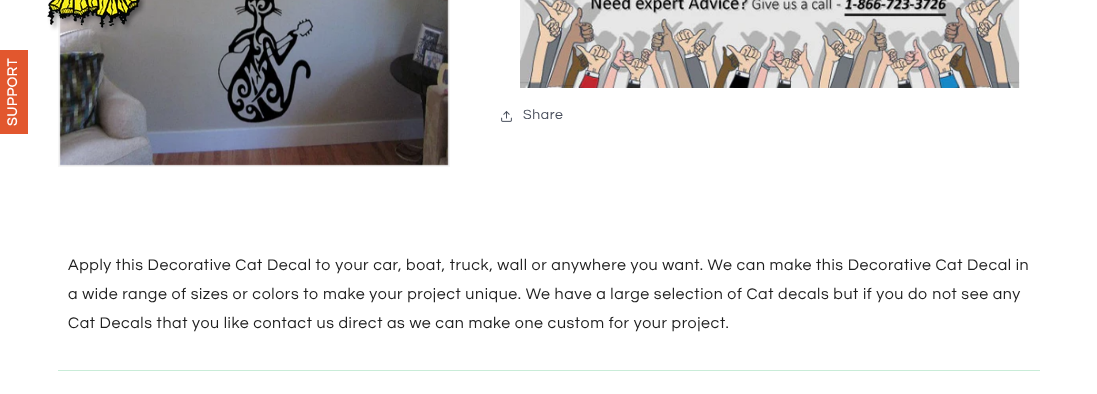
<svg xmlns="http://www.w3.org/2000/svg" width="1097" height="394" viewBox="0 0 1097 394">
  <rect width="100%" height="100%" fill="rgb(255,255,255)"/>
  <rect x="58.5" y="-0.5" width="391" height="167" fill="none" stroke="rgb(246,246,246)"/>
  <rect x="59.5" y="-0.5" width="389" height="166" fill="none" stroke="rgb(243,243,243)"/>
  <image x="59" y="0" width="390" height="166" href="pic2.png"/>
  <image x="47" y="0" width="99" height="32" href="pic1.png"/>
  <rect x="0" y="50" width="28" height="84" fill="rgb(226,87,46)"/>
  <text x="17" y="126" transform="rotate(-90 17 126)" font-family="Questrial" font-size="14" font-weight="bold" letter-spacing="0.6" fill="rgb(255,255,255)">SUPPORT</text>
  <image x="520" y="0" width="500" height="88" href="pic3.png"/>
  <image x="501" y="111" width="11" height="11" href="pic4.png"/>
  <text x="523" y="119" font-family="Questrial" font-size="14" letter-spacing="0.6" fill="rgb(73,79,92)">Share</text>
  <rect x="58" y="370" width="982" height="1" fill="rgb(201,236,216)"/>
  <g font-family="Questrial" font-size="16" letter-spacing="0.6" fill="rgb(30,30,30)">
    <text>
      <tspan x="68" y="270">Apply this Decorative Cat Decal to your car, boat, truck, wall or anywhere you want. We can make this Decorative Cat Decal in</tspan>
      <tspan x="68" y="299">a wide range of sizes or colors to make your project unique. We have a large selection of Cat decals but if you do not see any</tspan>
      <tspan x="68" y="328">Cat Decals that you like contact us direct as we can make one custom for your project.</tspan>
    </text>
  </g>
</svg>
